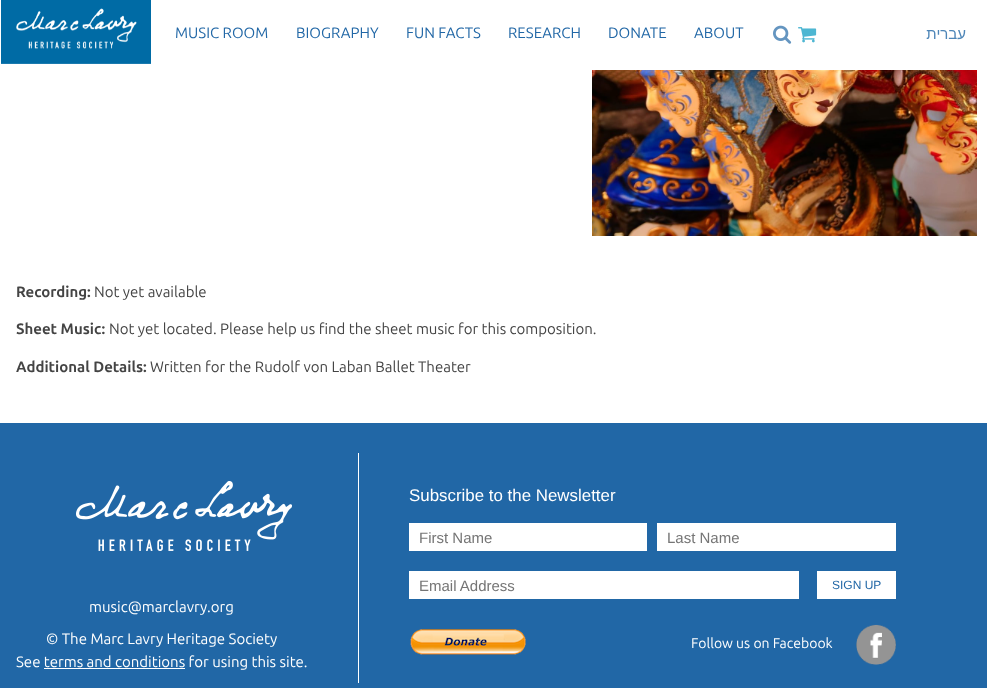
<svg xmlns="http://www.w3.org/2000/svg" width="987" height="688" viewBox="0 0 987 688">
  <rect width="100%" height="100%" fill="rgb(255,255,255)"/>
  <image x="1" y="0" width="150" height="64" href="pic1.png"/>
  <g font-family="Ubuntu" font-size="15" fill="rgb(33,103,166)">
    <text x="175" y="38">MUSIC ROOM</text>
    <text x="296" y="38">BIOGRAPHY</text>
    <text x="406" y="38">FUN FACTS</text>
    <text x="508" y="38">RESEARCH</text>
    <text x="608" y="38">DONATE</text>
    <text x="694" y="38">ABOUT</text>
  </g>
  <image x="773" y="25" width="19" height="19" href="pic2.png"/>
  <image x="798" y="27" width="19" height="16" href="pic3.png"/>
  <text x="966" y="39" font-family="Liberation Sans" font-size="15" direction="rtl" fill="rgb(77,133,183)">עברית</text>
  <image x="592" y="70" width="385" height="166" href="pic4.png"/>
  <text x="16" y="297" font-family="Ubuntu" font-size="15" font-weight="bold" fill="rgb(68,68,68)">Recording:</text>
  <text x="94" y="297" font-family="Ubuntu" font-size="15" fill="rgb(68,68,68)">Not yet available</text>
  <text x="16" y="334" font-family="Ubuntu" font-size="15" font-weight="bold" fill="rgb(68,68,68)">Sheet Music:</text>
  <text x="109" y="334" font-family="Ubuntu" font-size="15" fill="rgb(68,68,68)">Not yet located. Please help us find the sheet music for this composition.</text>
  <text x="16" y="372" font-family="Ubuntu" font-size="15" font-weight="bold" fill="rgb(68,68,68)">Additional Details:</text>
  <text x="150" y="372" font-family="Ubuntu" font-size="15" fill="rgb(68,68,68)">Written for the Rudolf von Laban Ballet Theater</text>
  <rect x="0" y="423" width="987" height="265" fill="rgb(33,103,166)"/>
  <rect x="358" y="453" width="1" height="230" fill="rgb(255,255,255)"/>
  <image x="76" y="481" width="216" height="70" href="pic5.png"/>
  <g font-family="Ubuntu" font-size="15" fill="rgb(255,255,255)">
    <text x="89" y="612">music@marclavry.org</text>
    <text x="46" y="644">© The Marc Lavry Heritage Society</text>
    <text x="16" y="667">See terms and conditions for using this site.</text>
  </g>
  <rect x="44" y="668" width="141" height="1" fill="rgb(255,255,255)"/>
  <text x="409" y="501" font-family="Liberation Sans" font-size="16.9" fill="rgb(255,255,255)">Subscribe to the Newsletter</text>
  <rect x="409" y="523" width="238" height="28" fill="rgb(255,255,255)"/>
  <text x="419" y="543" font-family="Liberation Sans" font-size="15" fill="rgb(117,117,117)">First Name</text>
  <rect x="657" y="523" width="239" height="28" fill="rgb(255,255,255)"/>
  <text x="667" y="543" font-family="Liberation Sans" font-size="15" fill="rgb(117,117,117)">Last Name</text>
  <rect x="409" y="571" width="390" height="28" fill="rgb(255,255,255)"/>
  <text x="419" y="591" font-family="Liberation Sans" font-size="15" fill="rgb(117,117,117)">Email Address</text>
  <rect x="817" y="571" width="79" height="28" fill="rgb(255,255,255)"/>
  <text x="832" y="589" font-family="Liberation Sans" font-size="12" fill="rgb(33,103,166)">SIGN UP</text>
  <image x="410" y="629" width="116" height="26" href="pic6.png"/>
  <text x="691" y="648" font-family="Ubuntu" font-size="14" fill="rgb(255,255,255)">Follow us on Facebook</text>
  <image x="856" y="624" width="40" height="41" href="pic7.png"/>
</svg>
